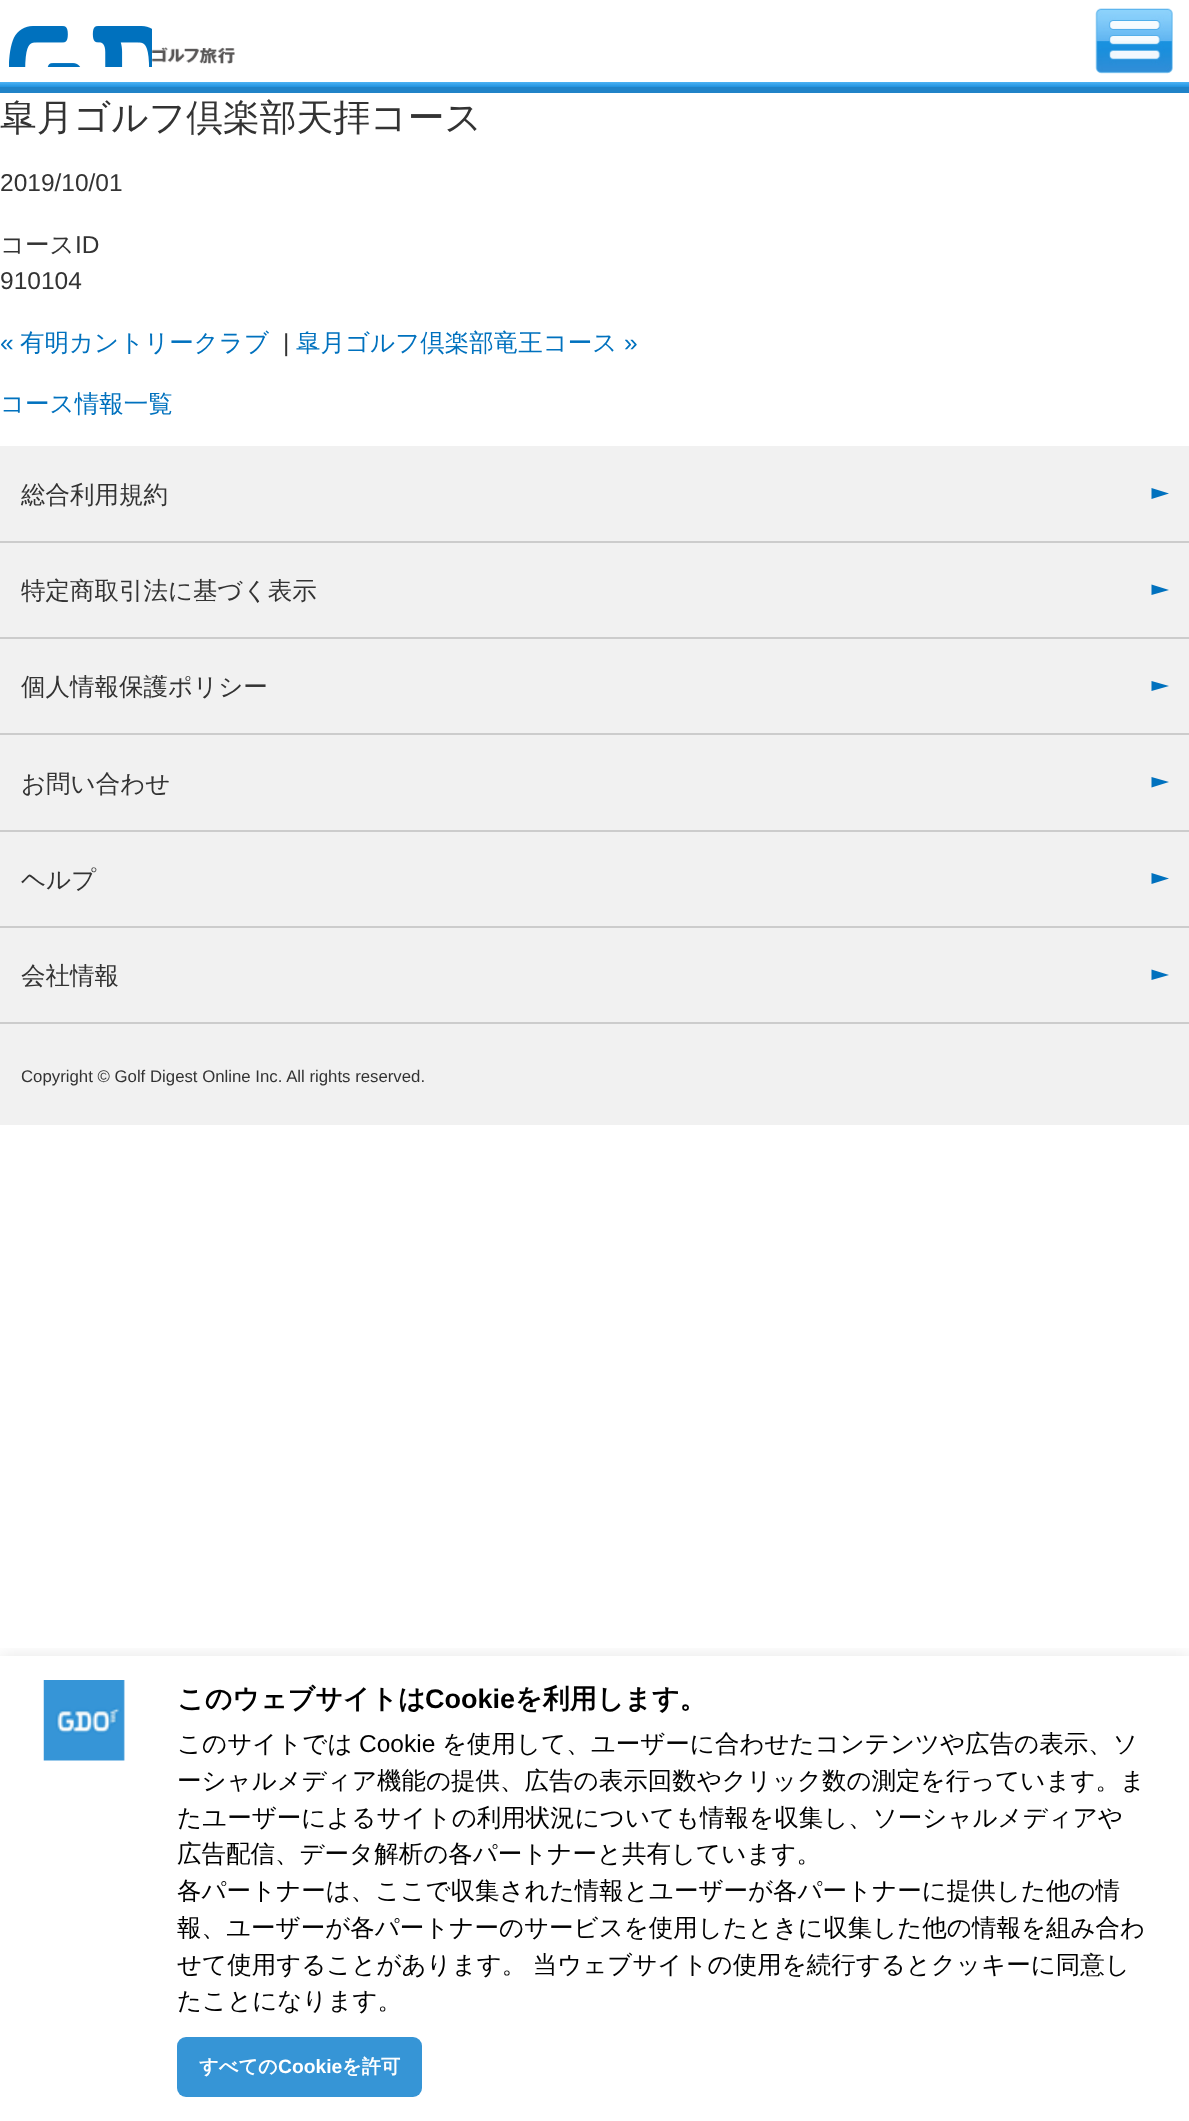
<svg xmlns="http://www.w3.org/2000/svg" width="1189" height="2121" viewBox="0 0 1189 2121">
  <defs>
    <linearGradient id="g1" gradientUnits="userSpaceOnUse" x1="0" y1="82" x2="0" y2="93"><stop offset="0" stop-color="rgb(77,179,245)"/><stop offset="0.5" stop-color="rgb(28,143,221)"/><stop offset="0.5" stop-color="rgb(32,131,200)"/><stop offset="1" stop-color="rgb(32,131,200)"/></linearGradient>
    <clipPath id="clip1"><rect x="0" y="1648" width="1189" height="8"/></clipPath>
  </defs>
  <rect width="100%" height="100%" fill="rgb(255,255,255)"/>
  <image x="9" y="26" width="143" height="41" href="pic1.png"/>
  <image x="152" y="47" width="83" height="17" href="pic2.png"/>
  <image x="1095" y="8" width="78" height="66" href="pic3.png"/>
  <rect x="0" y="82" width="1189" height="11" fill="url(#g1)"/>
  <text x="0" y="130" font-family="WenQuanYi Zen Hei" font-size="36.75" font-weight="500" fill="rgb(51,51,51)">皐月ゴルフ倶楽部天拝コース</text>
  <text x="0" y="191" font-family="Liberation Sans" font-size="24.5" fill="rgb(51,51,51)">2019/10/01</text>
  <text x="0" y="253" font-family="WenQuanYi Zen Hei" font-size="24.5" font-weight="500" fill="rgb(51,51,51)">コース</text>
  <g font-family="Liberation Sans" font-size="24.5" fill="rgb(51,51,51)">
    <text x="75" y="253">ID</text>
    <text x="0" y="289">910104</text>
  </g>
  <text x="0" y="351" font-family="Liberation Sans" font-size="24.5" fill="rgb(0,113,190)">«</text>
  <text x="20" y="351" font-family="WenQuanYi Zen Hei" font-size="24.5" font-weight="500" fill="rgb(0,113,190)">有明カントリークラブ</text>
  <text x="283" y="351" font-family="Liberation Sans" font-size="24.5" fill="rgb(51,51,51)">|</text>
  <text x="296" y="351" font-family="WenQuanYi Zen Hei" font-size="24.5" font-weight="500" fill="rgb(0,113,190)">皐月ゴルフ倶楽部竜王コース</text>
  <text x="624" y="351" font-family="Liberation Sans" font-size="24.5" fill="rgb(0,113,190)">»</text>
  <text x="0" y="412" font-family="WenQuanYi Zen Hei" font-size="24.5" font-weight="500" fill="rgb(0,113,190)">コース情報一覧</text>
  <rect x="0" y="446" width="1189" height="679" fill="rgb(241,241,241)"/>
  <rect x="0" y="541" width="1189" height="2" fill="rgb(204,204,204)"/>
  <text x="21" y="503" font-family="WenQuanYi Zen Hei" font-size="24.5" font-weight="500" fill="rgb(51,51,51)">総合利用規約</text>
  <path d="M1151.5 499V488L1169 493.5Z" fill="rgb(0,113,190)"/>
  <rect x="0" y="637" width="1189" height="2" fill="rgb(204,204,204)"/>
  <text x="21" y="599" font-family="WenQuanYi Zen Hei" font-size="24.5" font-weight="500" fill="rgb(51,51,51)">特定商取引法に基づく表示</text>
  <path d="M1151.5 595V584.5L1169 590Z" fill="rgb(0,113,190)"/>
  <rect x="0" y="733" width="1189" height="2" fill="rgb(204,204,204)"/>
  <text x="21" y="695" font-family="WenQuanYi Zen Hei" font-size="24.5" font-weight="500" fill="rgb(51,51,51)">個人情報保護ポリシー</text>
  <path d="M1151.5 691V681L1169 686Z" fill="rgb(0,113,190)"/>
  <rect x="0" y="830" width="1189" height="2" fill="rgb(204,204,204)"/>
  <text x="21" y="792" font-family="WenQuanYi Zen Hei" font-size="24.5" font-weight="500" fill="rgb(51,51,51)">お問い合わせ</text>
  <path d="M1151.5 787.5V777L1169 782Z" fill="rgb(0,113,190)"/>
  <rect x="0" y="926" width="1189" height="2" fill="rgb(204,204,204)"/>
  <text x="21" y="888" font-family="WenQuanYi Zen Hei" font-size="24.5" font-weight="500" fill="rgb(51,51,51)">ヘルプ</text>
  <path d="M1151.5 884V873L1169 878.5Z" fill="rgb(0,113,190)"/>
  <rect x="0" y="1022" width="1189" height="2" fill="rgb(204,204,204)"/>
  <text x="21" y="984" font-family="WenQuanYi Zen Hei" font-size="24.5" font-weight="500" fill="rgb(51,51,51)">会社情報</text>
  <path d="M1151.5 980V969.5L1169 975Z" fill="rgb(0,113,190)"/>
  <text x="21" y="1082" font-family="Liberation Sans" font-size="16.8" fill="rgb(51,51,51)">Copyright © Golf Digest Online Inc. All rights reserved.</text>
  <g clip-path="url(#clip1)">
    <rect x="0" y="1656" width="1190" height="465" fill="rgba(0,0,0,0.1)" filter="blur(9px)"/>
  </g>
  <image x="43" y="1680" width="82" height="81" href="pic4.png"/>
  <text x="177" y="1708" font-family="WenQuanYi Zen Hei" font-size="27" font-weight="bold" fill="rgb(0,0,0)">このウェブサイトは</text>
  <text x="425" y="1708" font-family="Liberation Sans" font-size="27" font-weight="bold" fill="rgb(0,0,0)">Cookie</text>
  <text x="515" y="1708" font-family="WenQuanYi Zen Hei" font-size="27" font-weight="bold" fill="rgb(0,0,0)">を利用します。</text>
  <text x="177" y="1752" font-family="WenQuanYi Zen Hei" font-size="24.5" font-weight="500" fill="rgb(0,0,0)">このサイトでは</text>
  <text x="359" y="1752" font-family="Liberation Sans" font-size="24.5" fill="rgb(0,0,0)">Cookie</text>
  <g font-family="WenQuanYi Zen Hei" font-size="24.5" font-weight="500" fill="rgb(0,0,0)">
    <text x="442" y="1752">を使用して、ユーザーに合わせたコンテンツや広告の表示、ソ</text>
    <text>
      <tspan x="177" y="1789">ーシャルメディア機能の提供、広告の表示回数やクリック数の測定を行っています。ま</tspan>
      <tspan x="177" y="1826">たユーザーによるサイトの利用状況についても情報を収集し、ソーシャルメディアや</tspan>
      <tspan x="177" y="1862">広告配信、データ解析の各パートナーと共有しています。</tspan>
      <tspan x="177" y="1899">各パートナーは、ここで収集された情報とユーザーが各パートナーに提供した他の情</tspan>
      <tspan x="177" y="1936">報、ユーザーが各パートナーのサービスを使用したときに収集した他の情報を組み合わ</tspan>
      <tspan x="177" y="1973" word-spacing="-1">せて使用することがあります。 当ウェブサイトの使用を続行するとクッキーに同意し</tspan>
      <tspan x="177" y="2009">たことになります。</tspan>
    </text>
  </g>
  <rect x="177" y="2037" width="245" height="60" rx="9" fill="rgb(54,149,214)"/>
  <text x="199" y="2073" font-family="WenQuanYi Zen Hei" font-size="19.25" font-weight="bold" fill="rgb(255,255,255)">すべての</text>
  <text x="278" y="2073" font-family="Liberation Sans" font-size="19.25" font-weight="bold" fill="rgb(255,255,255)">Cookie</text>
  <text x="342" y="2073" font-family="WenQuanYi Zen Hei" font-size="19.25" font-weight="bold" fill="rgb(255,255,255)">を許可</text>
</svg>
